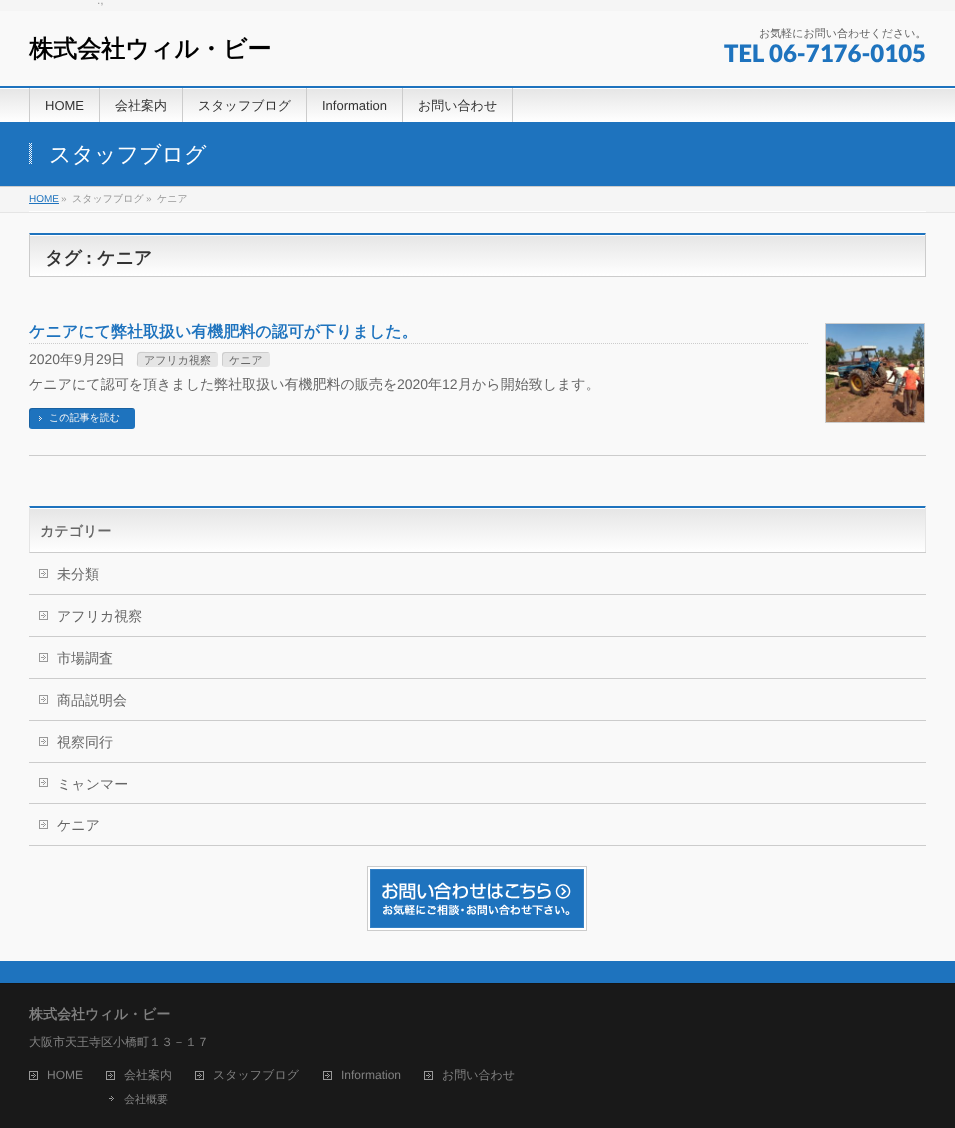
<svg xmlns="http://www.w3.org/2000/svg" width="955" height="1128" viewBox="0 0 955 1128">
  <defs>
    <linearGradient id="g1" gradientUnits="userSpaceOnUse" x1="478" y1="88" x2="478" y2="122"><stop offset="0" stop-color="rgb(229,229,229)"/><stop offset="1" stop-color="rgb(255,255,255)"/></linearGradient>
    <linearGradient id="g2" gradientUnits="userSpaceOnUse" x1="30" y1="235" x2="30" y2="276"><stop offset="0" stop-color="rgb(229,229,229)"/><stop offset="1" stop-color="rgb(255,255,255)"/></linearGradient>
    <linearGradient id="g3" gradientUnits="userSpaceOnUse" x1="30" y1="508" x2="30" y2="552"><stop offset="0" stop-color="rgb(229,229,229)"/><stop offset="1" stop-color="rgb(255,255,255)"/></linearGradient>
  </defs>
  <rect width="100%" height="100%" fill="rgb(249,249,249)"/>
  <rect x="0" y="0" width="955" height="11" fill="rgb(245,245,245)"/>
  <text x="97" y="4" font-family="Liberation Sans" font-size="12" fill="rgb(153,153,153)">.,</text>
  <text x="29" y="57" font-family="WenQuanYi Zen Hei" font-size="24" font-weight="bold" fill="rgb(0,0,0)">株式会社ウィル・ビー</text>
  <text x="759" y="37" font-family="WenQuanYi Zen Hei" font-size="11" font-weight="500" fill="rgb(102,102,102)">お気軽にお問い合わせください。</text>
  <text x="724" y="62" font-family="Lato" font-size="24" font-weight="900" fill="rgb(30,115,190)">TEL 06-7176-0105</text>
  <rect x="0" y="89" width="955" height="33" fill="url(#g1)"/>
  <rect x="0" y="88" width="955" height="1" fill="rgb(255,255,255)"/>
  <rect x="0" y="86" width="955" height="2" fill="rgb(30,115,190)"/>
  <rect x="29" y="88" width="1" height="34" fill="rgb(204,204,204)"/>
  <rect x="99" y="88" width="1" height="34" fill="rgb(204,204,204)"/>
  <text x="45" y="110" font-family="Liberation Sans" font-size="13" fill="rgb(51,51,51)">HOME</text>
  <rect x="182" y="88" width="1" height="34" fill="rgb(204,204,204)"/>
  <text x="115" y="110" font-family="WenQuanYi Zen Hei" font-size="13" font-weight="500" fill="rgb(51,51,51)">会社案内</text>
  <rect x="306" y="88" width="1" height="34" fill="rgb(204,204,204)"/>
  <text x="198" y="110" font-family="WenQuanYi Zen Hei" font-size="13" font-weight="500" fill="rgb(51,51,51)">スタッフブログ</text>
  <rect x="402" y="88" width="1" height="34" fill="rgb(204,204,204)"/>
  <text x="322" y="110" font-family="Liberation Sans" font-size="13" fill="rgb(51,51,51)">Information</text>
  <rect x="512" y="88" width="1" height="34" fill="rgb(204,204,204)"/>
  <text x="418" y="110" font-family="WenQuanYi Zen Hei" font-size="13" font-weight="500" fill="rgb(51,51,51)">お問い合わせ</text>
  <rect x="0" y="122" width="955" height="64" fill="rgb(30,115,190)"/>
  <rect x="0" y="186" width="955" height="1" fill="rgb(204,204,204)"/>
  <image x="29" y="143" width="3" height="21" href="pic1.png"/>
  <text x="49" y="162" font-family="WenQuanYi Zen Hei" font-size="22" font-weight="500" fill="rgb(255,255,255)">スタッフブログ</text>
  <rect x="0" y="187" width="955" height="25" fill="rgb(245,245,245)"/>
  <rect x="0" y="212" width="955" height="1" fill="rgb(229,229,229)"/>
  <rect x="29" y="211" width="897" height="1" fill="rgb(255,255,255)"/>
  <text x="29" y="202" font-family="Liberation Sans" font-size="10" fill="rgb(30,115,190)">HOME</text>
  <rect x="29" y="203" width="30" height="1" fill="rgb(30,115,190)"/>
  <text x="61" y="202" font-family="Liberation Sans" font-size="10" fill="rgb(153,153,153)">»</text>
  <text x="72" y="202" font-family="WenQuanYi Zen Hei" font-size="10" font-weight="500" fill="rgb(153,153,153)">スタッフブログ</text>
  <text x="146" y="202" font-family="Liberation Sans" font-size="10" fill="rgb(153,153,153)">»</text>
  <text x="157" y="202" font-family="WenQuanYi Zen Hei" font-size="10" font-weight="500" fill="rgb(153,153,153)">ケニア</text>
  <rect x="30" y="236" width="895" height="40" fill="url(#g2)"/>
  <rect x="30" y="235" width="895" height="1" fill="rgb(255,255,255)"/>
  <path d="M29 233H926L925 235H30Z" fill="rgb(30,115,190)"/>
  <path d="M926 233V277L925 276V235Z" fill="rgb(204,204,204)"/>
  <rect x="29" y="276" width="897" height="1" fill="rgb(204,204,204)"/>
  <path d="M29 277V233L30 235V276Z" fill="rgb(204,204,204)"/>
  <text x="45" y="264" font-family="WenQuanYi Zen Hei" font-size="18" font-weight="bold" fill="rgb(51,51,51)">タグ</text>
  <text x="86" y="264" font-family="Liberation Sans" font-size="18" font-weight="bold" fill="rgb(51,51,51)">:</text>
  <text x="97" y="264" font-family="WenQuanYi Zen Hei" font-size="18" font-weight="bold" fill="rgb(51,51,51)">ケニア</text>
  <rect x="29" y="455" width="897" height="1" fill="rgb(204,204,204)"/>
  <path d="M29 343.5H809" fill="none" stroke="rgb(204,204,204)" stroke-dasharray="1 1"/>
  <text x="29" y="337" font-family="WenQuanYi Zen Hei" font-size="16" font-weight="bold" fill="rgb(30,115,190)">ケニアにて弊社取扱い有機肥料の認可が下りました。</text>
  <text x="29" y="364" font-family="Liberation Sans" font-size="14" fill="rgb(102,102,102)">2020</text>
  <text x="60" y="364" font-family="WenQuanYi Zen Hei" font-size="14" font-weight="500" fill="rgb(102,102,102)">年</text>
  <text x="74" y="364" font-family="Liberation Sans" font-size="14" fill="rgb(102,102,102)">9</text>
  <text x="82" y="364" font-family="WenQuanYi Zen Hei" font-size="14" font-weight="500" fill="rgb(102,102,102)">月</text>
  <text x="96" y="364" font-family="Liberation Sans" font-size="14" fill="rgb(102,102,102)">29</text>
  <text x="111" y="364" font-family="WenQuanYi Zen Hei" font-size="14" font-weight="500" fill="rgb(102,102,102)">日</text>
  <rect x="137" y="352" width="81" height="15" rx="3" fill="rgb(229,229,229)"/>
  <path d="M141 353H217L215 352H152C139 352 137 349 137 360C137 362 136 365 138 366V360C138 358 137 353 141 353Z" fill="rgba(0,0,0,0.1)"/>
  <text x="144" y="364" font-family="WenQuanYi Zen Hei" font-size="11" font-weight="500" fill="rgb(102,102,102)">アフリカ視察</text>
  <rect x="222" y="352" width="48" height="15" rx="3" fill="rgb(229,229,229)"/>
  <path d="M226 353H269C269 352 268 352 267 352H225C223 352 222 353 222 355V364C222 365 222 366 223 366V360C223 358 222 353 226 353Z" fill="rgba(0,0,0,0.1)"/>
  <text x="229" y="364" font-family="WenQuanYi Zen Hei" font-size="11" font-weight="500" fill="rgb(102,102,102)">ケニア</text>
  <text x="29" y="389" font-family="WenQuanYi Zen Hei" font-size="14" font-weight="500" fill="rgb(102,102,102)">ケニアにて認可を頂きました弊社取扱い有機肥料の販売を</text>
  <text x="397" y="389" font-family="Liberation Sans" font-size="14" fill="rgb(102,102,102)">2020</text>
  <text x="428" y="389" font-family="WenQuanYi Zen Hei" font-size="14" font-weight="500" fill="rgb(102,102,102)">年</text>
  <text x="442" y="389" font-family="Liberation Sans" font-size="14" fill="rgb(102,102,102)">12</text>
  <text x="458" y="389" font-family="WenQuanYi Zen Hei" font-size="14" font-weight="500" fill="rgb(102,102,102)">月から開始致します。</text>
  <rect x="29" y="408" width="106" height="21" rx="3" fill="rgb(30,115,190)"/>
  <image x="39" y="416" width="3" height="5" href="pic2.png"/>
  <path d="M33 409H134C134 408 133 408 132 408H32C30 408 29 409 29 411V426C29 427 29 428 30 428V420C30 417 28 409 33 409Z" fill="rgba(0,0,0,0.15)"/>
  <text x="49" y="421" font-family="WenQuanYi Zen Hei" font-size="10" font-weight="500" fill="rgb(245,245,245)">この記事を読む</text>
  <rect x="825.5" y="323.5" width="99" height="99" fill="none" stroke="rgb(204,204,204)"/>
  <image x="826" y="324" width="98" height="98" href="pic3.png"/>
  <rect x="30" y="509" width="895" height="43" fill="url(#g3)"/>
  <rect x="30" y="508" width="895" height="1" fill="rgb(255,255,255)"/>
  <path d="M29 506H926L925 508H30Z" fill="rgb(30,115,190)"/>
  <path d="M926 506V553L925 552V508Z" fill="rgb(229,229,229)"/>
  <rect x="29" y="552" width="897" height="1" fill="rgb(204,204,204)"/>
  <path d="M29 553V506L30 508V552Z" fill="rgb(229,229,229)"/>
  <text x="40" y="536" font-family="WenQuanYi Zen Hei" font-size="14" font-weight="bold" fill="rgb(102,102,102)">カテゴリー</text>
  <rect x="29" y="594" width="897" height="1" fill="rgb(204,204,204)"/>
  <image x="39" y="569" width="9" height="9" href="pic4.png"/>
  <text x="57" y="579" font-family="WenQuanYi Zen Hei" font-size="14" font-weight="500" fill="rgb(102,102,102)">未分類</text>
  <rect x="29" y="636" width="897" height="1" fill="rgb(204,204,204)"/>
  <image x="39" y="611" width="9" height="9" href="pic4.png"/>
  <text x="57" y="621" font-family="WenQuanYi Zen Hei" font-size="14" font-weight="500" fill="rgb(102,102,102)">アフリカ視察</text>
  <rect x="29" y="678" width="897" height="1" fill="rgb(204,204,204)"/>
  <image x="39" y="653" width="9" height="9" href="pic4.png"/>
  <text x="57" y="663" font-family="WenQuanYi Zen Hei" font-size="14" font-weight="500" fill="rgb(102,102,102)">市場調査</text>
  <rect x="29" y="720" width="897" height="1" fill="rgb(204,204,204)"/>
  <image x="39" y="695" width="9" height="9" href="pic4.png"/>
  <text x="57" y="705" font-family="WenQuanYi Zen Hei" font-size="14" font-weight="500" fill="rgb(102,102,102)">商品説明会</text>
  <rect x="29" y="762" width="897" height="1" fill="rgb(204,204,204)"/>
  <image x="39" y="737" width="9" height="9" href="pic4.png"/>
  <text x="57" y="747" font-family="WenQuanYi Zen Hei" font-size="14" font-weight="500" fill="rgb(102,102,102)">視察同行</text>
  <rect x="29" y="803" width="897" height="1" fill="rgb(204,204,204)"/>
  <image x="39" y="778" width="9" height="9" href="pic4.png"/>
  <text x="57" y="789" font-family="WenQuanYi Zen Hei" font-size="14" font-weight="500" fill="rgb(102,102,102)">ミャンマー</text>
  <rect x="29" y="845" width="897" height="1" fill="rgb(204,204,204)"/>
  <image x="39" y="820" width="9" height="9" href="pic4.png"/>
  <text x="57" y="830" font-family="WenQuanYi Zen Hei" font-size="14" font-weight="500" fill="rgb(102,102,102)">ケニア</text>
  <rect x="370" y="869" width="214" height="59" fill="rgb(30,115,190)"/>
  <image x="367" y="866" width="220" height="65" href="pic5.png"/>
  <rect x="0" y="961" width="955" height="22" fill="rgb(30,115,190)"/>
  <rect x="0" y="984" width="955" height="144" fill="rgb(25,25,25)"/>
  <rect x="0" y="983" width="955" height="1" fill="rgb(21,21,21)"/>
  <text x="29" y="1019" font-family="WenQuanYi Zen Hei" font-size="14" font-weight="bold" fill="rgb(128,128,128)">株式会社ウィル・ビー</text>
  <text x="29" y="1046" font-family="WenQuanYi Zen Hei" font-size="12" font-weight="500" fill="rgb(128,128,128)">大阪市天王寺区小橋町１３－１７</text>
  <image x="29" y="1071" width="9" height="9" href="pic6.png"/>
  <text x="47" y="1079" font-family="Liberation Sans" font-size="12" fill="rgb(128,128,128)">HOME</text>
  <image x="106" y="1071" width="9" height="9" href="pic6.png"/>
  <text x="124" y="1079" font-family="WenQuanYi Zen Hei" font-size="12" font-weight="500" fill="rgb(128,128,128)">会社案内</text>
  <image x="109" y="1096" width="5" height="5" href="pic7.png"/>
  <text x="124" y="1103" font-family="WenQuanYi Zen Hei" font-size="11" font-weight="500" fill="rgb(128,128,128)">会社概要</text>
  <image x="195" y="1071" width="9" height="9" href="pic6.png"/>
  <text x="213" y="1079" font-family="WenQuanYi Zen Hei" font-size="12" font-weight="500" fill="rgb(128,128,128)">スタッフブログ</text>
  <image x="323" y="1071" width="9" height="9" href="pic6.png"/>
  <text x="341" y="1079" font-family="Liberation Sans" font-size="12" fill="rgb(128,128,128)">Information</text>
  <image x="424" y="1071" width="9" height="9" href="pic6.png"/>
  <text x="442" y="1079" font-family="WenQuanYi Zen Hei" font-size="12" font-weight="500" fill="rgb(128,128,128)">お問い合わせ</text>
</svg>
